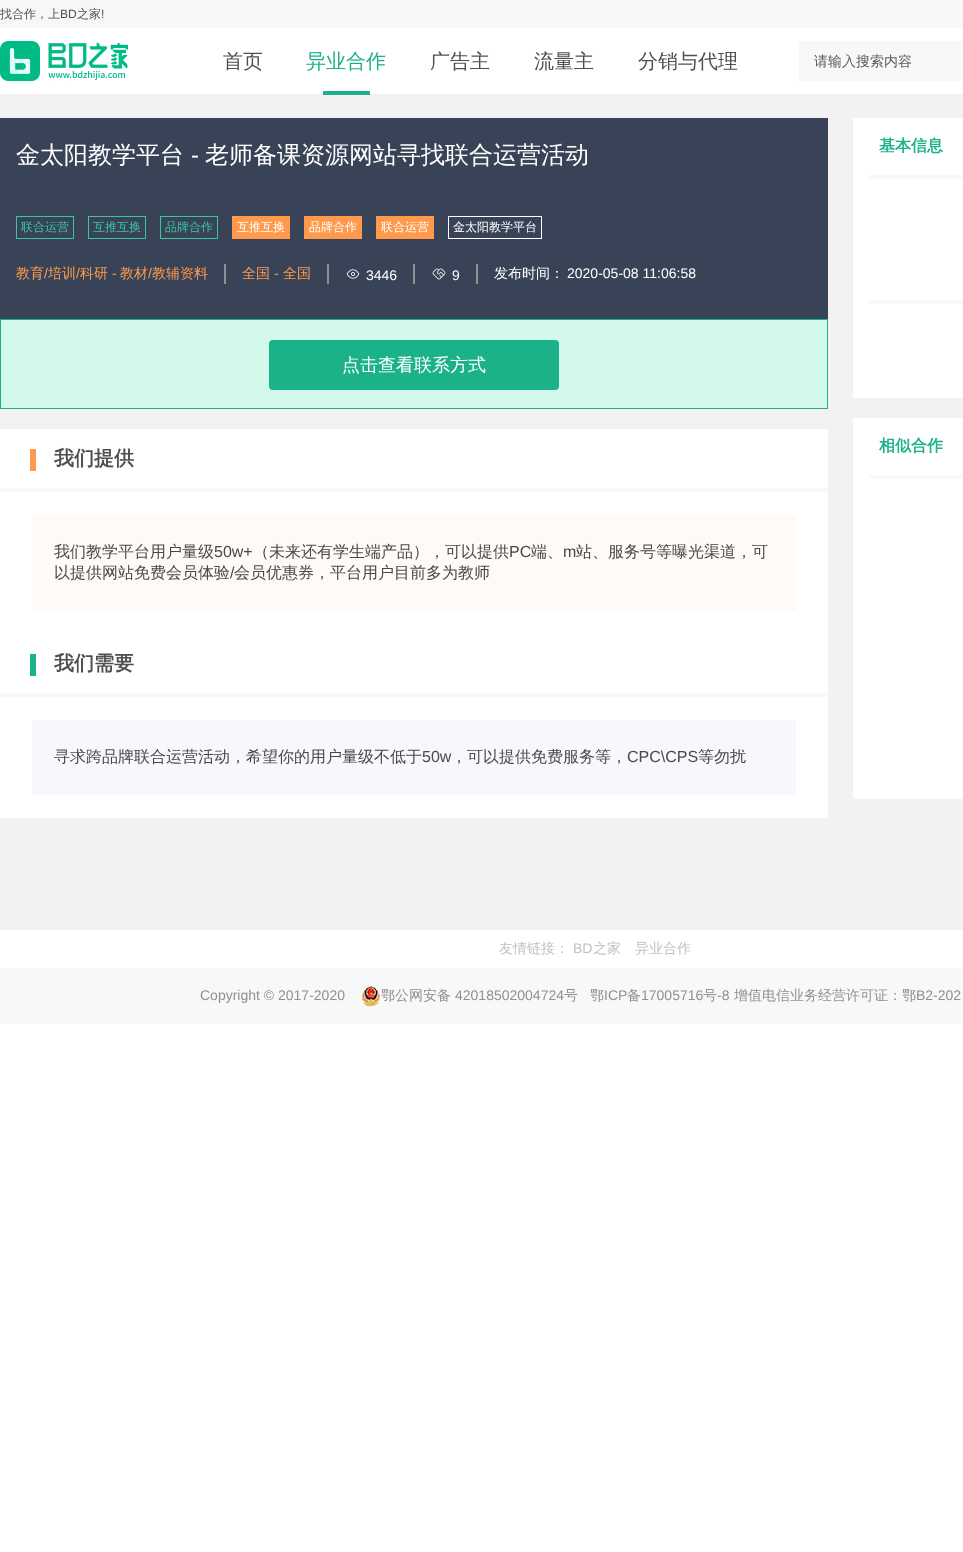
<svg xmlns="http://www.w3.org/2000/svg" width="963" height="1552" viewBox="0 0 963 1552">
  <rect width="100%" height="100%" fill="rgb(255,255,255)"/>
  <rect x="0" y="0" width="963" height="28" fill="rgb(247,247,247)"/>
  <text x="0" y="18" font-family="WenQuanYi Zen Hei" font-size="12" font-weight="500" fill="rgb(80,80,80)">找合作，上</text>
  <text x="60" y="18" font-family="Liberation Sans" font-size="12" fill="rgb(80,80,80)">BD</text>
  <text x="77" y="18" font-family="WenQuanYi Zen Hei" font-size="12" font-weight="500" fill="rgb(80,80,80)">之家</text>
  <text x="101" y="18" font-family="Liberation Sans" font-size="12" fill="rgb(80,80,80)">!</text>
  <image x="0" y="41" width="128" height="40" href="pic1.png"/>
  <text x="223" y="68" font-family="WenQuanYi Zen Hei" font-size="20" font-weight="500" fill="rgb(80,80,80)">首页</text>
  <text x="306" y="68" font-family="WenQuanYi Zen Hei" font-size="20" font-weight="500" fill="rgb(27,178,138)">异业合作</text>
  <rect x="0" y="94" width="963" height="836" fill="rgb(244,241,244)"/>
  <rect x="323" y="91" width="47" height="4" fill="rgb(27,178,138)"/>
  <g font-family="WenQuanYi Zen Hei" font-size="20" font-weight="500" fill="rgb(80,80,80)">
    <text x="430" y="68">广告主</text>
    <text x="534" y="68">流量主</text>
    <text x="638" y="68">分销与代理</text>
  </g>
  <rect x="799" y="41" width="164" height="40" fill="rgb(247,249,248)"/>
  <text x="814" y="66" font-family="WenQuanYi Zen Hei" font-size="14" font-weight="500" fill="rgb(89,90,89)">请输入搜索内容</text>
  <rect x="0" y="118" width="828" height="201" fill="rgb(57,67,87)"/>
  <text x="16" y="163" font-family="WenQuanYi Zen Hei" font-size="24" font-weight="500" fill="rgb(255,255,255)">金太阳教学平台</text>
  <text x="191" y="163" font-family="Liberation Sans" font-size="24" fill="rgb(255,255,255)">-</text>
  <text x="205" y="163" font-family="WenQuanYi Zen Hei" font-size="24" font-weight="500" fill="rgb(255,255,255)">老师备课资源网站寻找联合运营活动</text>
  <rect x="16.5" y="216.5" width="57" height="22" fill="none" stroke="rgb(56,200,156)"/>
  <text x="21" y="231" font-family="WenQuanYi Zen Hei" font-size="12" font-weight="500" fill="rgb(56,200,156)">联合运营</text>
  <rect x="88.5" y="216.5" width="57" height="22" fill="none" stroke="rgb(56,200,156)"/>
  <text x="93" y="231" font-family="WenQuanYi Zen Hei" font-size="12" font-weight="500" fill="rgb(56,200,156)">互推互换</text>
  <rect x="160.5" y="216.5" width="57" height="22" fill="none" stroke="rgb(56,200,156)"/>
  <text x="165" y="231" font-family="WenQuanYi Zen Hei" font-size="12" font-weight="500" fill="rgb(56,200,156)">品牌合作</text>
  <rect x="232" y="216" width="58" height="23" fill="rgb(255,154,76)"/>
  <text x="237" y="231" font-family="WenQuanYi Zen Hei" font-size="12" font-weight="500" fill="rgb(255,255,255)">互推互换</text>
  <rect x="304" y="216" width="58" height="23" fill="rgb(255,154,76)"/>
  <text x="309" y="231" font-family="WenQuanYi Zen Hei" font-size="12" font-weight="500" fill="rgb(255,255,255)">品牌合作</text>
  <rect x="376" y="216" width="58" height="23" fill="rgb(255,154,76)"/>
  <text x="381" y="231" font-family="WenQuanYi Zen Hei" font-size="12" font-weight="500" fill="rgb(255,255,255)">联合运营</text>
  <rect x="448.5" y="216.5" width="93" height="22" fill="none" stroke="rgb(255,255,255)"/>
  <text x="453" y="231" font-family="WenQuanYi Zen Hei" font-size="12" font-weight="500" fill="rgb(255,255,255)">金太阳教学平台</text>
  <text x="16" y="278" font-family="WenQuanYi Zen Hei" font-size="14" font-weight="500" fill="rgb(255,154,76)">教育</text>
  <text x="44" y="278" font-family="Liberation Sans" font-size="14" fill="rgb(255,154,76)">/</text>
  <text x="48" y="278" font-family="WenQuanYi Zen Hei" font-size="14" font-weight="500" fill="rgb(255,154,76)">培训</text>
  <text x="76" y="278" font-family="Liberation Sans" font-size="14" fill="rgb(255,154,76)">/</text>
  <text x="80" y="278" font-family="WenQuanYi Zen Hei" font-size="14" font-weight="500" fill="rgb(255,154,76)">科研</text>
  <text x="112" y="278" font-family="Liberation Sans" font-size="14" fill="rgb(255,154,76)">-</text>
  <text x="120" y="278" font-family="WenQuanYi Zen Hei" font-size="14" font-weight="500" fill="rgb(255,154,76)">教材</text>
  <text x="148" y="278" font-family="Liberation Sans" font-size="14" fill="rgb(255,154,76)">/</text>
  <text x="152" y="278" font-family="WenQuanYi Zen Hei" font-size="14" font-weight="500" fill="rgb(255,154,76)">教辅资料</text>
  <rect x="224" y="264" width="2" height="20" fill="rgb(144,144,144)"/>
  <text x="242" y="278" font-family="WenQuanYi Zen Hei" font-size="14" font-weight="500" fill="rgb(255,154,76)">全国</text>
  <text x="274" y="278" font-family="Liberation Sans" font-size="14" fill="rgb(255,154,76)">-</text>
  <text x="283" y="278" font-family="WenQuanYi Zen Hei" font-size="14" font-weight="500" fill="rgb(255,154,76)">全国</text>
  <rect x="327" y="264" width="2" height="20" fill="rgb(144,144,144)"/>
  <image x="346" y="269" width="14" height="10" href="pic2.png"/>
  <text x="366" y="280" font-family="Liberation Sans" font-size="14" fill="rgb(255,255,255)">3446</text>
  <rect x="413" y="264" width="2" height="20" fill="rgb(144,144,144)"/>
  <image x="432" y="268" width="14" height="12" href="pic3.png"/>
  <text x="452" y="280" font-family="Liberation Sans" font-size="14" fill="rgb(255,255,255)">9</text>
  <rect x="476" y="264" width="2" height="20" fill="rgb(144,144,144)"/>
  <text x="494" y="278" font-family="WenQuanYi Zen Hei" font-size="14" font-weight="500" fill="rgb(255,255,255)">发布时间：</text>
  <text x="567" y="278" font-family="Liberation Sans" font-size="14" fill="rgb(255,255,255)">2020-05-08 11:06:58</text>
  <rect x="0.5" y="319.5" width="827" height="89" fill="rgb(211,248,236)" stroke="rgb(27,178,138)"/>
  <rect x="269" y="340" width="290" height="50" rx="4" fill="rgb(27,178,138)"/>
  <text x="342" y="371" font-family="WenQuanYi Zen Hei" font-size="18" font-weight="500" fill="rgb(255,255,255)">点击查看联系方式</text>
  <rect x="0" y="429" width="828" height="389" fill="rgb(255,255,255)"/>
  <rect x="0" y="488" width="828" height="4" fill="rgb(247,249,248)"/>
  <rect x="30" y="449" width="6" height="22" fill="rgb(255,154,76)"/>
  <text x="54" y="465" font-family="WenQuanYi Zen Hei" font-size="20" font-weight="bold" fill="rgb(80,80,80)">我们提供</text>
  <rect x="32" y="515" width="764" height="96" fill="rgb(255,250,247)"/>
  <text x="54" y="557" font-family="WenQuanYi Zen Hei" font-size="16" font-weight="500" fill="rgb(73,73,73)">我们教学平台用户量级</text>
  <text x="214" y="557" font-family="Liberation Sans" font-size="16" fill="rgb(73,73,73)">50w+</text>
  <text x="253" y="557" font-family="WenQuanYi Zen Hei" font-size="16" font-weight="500" fill="rgb(73,73,73)">（未来还有学生端产品），可以提供</text>
  <text x="509" y="557" font-family="Liberation Sans" font-size="16" fill="rgb(73,73,73)">PC</text>
  <text x="531" y="557" font-family="WenQuanYi Zen Hei" font-size="16" font-weight="500" fill="rgb(73,73,73)">端、</text>
  <text x="563" y="557" font-family="Liberation Sans" font-size="16" fill="rgb(73,73,73)">m</text>
  <g font-family="WenQuanYi Zen Hei" font-size="16" font-weight="500" fill="rgb(73,73,73)">
    <text x="576" y="557">站、服务号等曝光渠道，可</text>
    <text x="54" y="578">以提供网站免费会员体验</text>
  </g>
  <text x="230" y="578" font-family="Liberation Sans" font-size="16" fill="rgb(73,73,73)">/</text>
  <text x="234" y="578" font-family="WenQuanYi Zen Hei" font-size="16" font-weight="500" fill="rgb(73,73,73)">会员优惠券，平台用户目前多为教师</text>
  <rect x="0" y="693" width="828" height="4" fill="rgb(247,249,248)"/>
  <rect x="30" y="654" width="6" height="22" fill="rgb(27,178,138)"/>
  <text x="54" y="670" font-family="WenQuanYi Zen Hei" font-size="20" font-weight="bold" fill="rgb(80,80,80)">我们需要</text>
  <rect x="32" y="720" width="764" height="75" fill="rgb(246,248,254)"/>
  <text x="54" y="762" font-family="WenQuanYi Zen Hei" font-size="16" font-weight="500" fill="rgb(73,73,73)">寻求跨品牌联合运营活动，希望你的用户量级不低于</text>
  <text x="422" y="762" font-family="Liberation Sans" font-size="16" fill="rgb(73,73,73)">50w</text>
  <text x="451" y="762" font-family="WenQuanYi Zen Hei" font-size="16" font-weight="500" fill="rgb(73,73,73)">，可以提供免费服务等，</text>
  <text x="627" y="762" font-family="Liberation Sans" font-size="16" fill="rgb(73,73,73)">CPC\CPS</text>
  <text x="698" y="762" font-family="WenQuanYi Zen Hei" font-size="16" font-weight="500" fill="rgb(73,73,73)">等勿扰</text>
  <rect x="853" y="118" width="110" height="280" fill="rgb(255,255,255)"/>
  <rect x="869" y="175" width="94" height="4" fill="rgb(247,249,248)"/>
  <text x="879" y="151" font-family="WenQuanYi Zen Hei" font-size="16" font-weight="bold" fill="rgb(27,178,138)">基本信息</text>
  <rect x="869" y="300" width="94" height="4" fill="rgb(247,249,248)"/>
  <rect x="853" y="418" width="110" height="381" fill="rgb(255,255,255)"/>
  <rect x="869" y="475" width="94" height="4" fill="rgb(247,249,248)"/>
  <text x="879" y="451" font-family="WenQuanYi Zen Hei" font-size="16" font-weight="bold" fill="rgb(27,178,138)">相似合作</text>
  <text x="499" y="953" font-family="WenQuanYi Zen Hei" font-size="14" font-weight="500" fill="rgb(193,193,193)">友情链接：</text>
  <text x="573" y="953" font-family="Liberation Sans" font-size="14" fill="rgb(193,193,193)">BD</text>
  <g font-family="WenQuanYi Zen Hei" font-size="14" font-weight="500" fill="rgb(193,193,193)">
    <text x="593" y="953">之家</text>
    <text x="635" y="953">异业合作</text>
  </g>
  <rect x="0" y="968" width="963" height="56" fill="rgb(247,249,248)"/>
  <text x="200" y="1000" font-family="Liberation Sans" font-size="14" fill="rgb(144,144,144)">Copyright © 2017-2020</text>
  <image x="362" y="986" width="18" height="20" href="pic4.png"/>
  <text x="381" y="1000" font-family="WenQuanYi Zen Hei" font-size="14" font-weight="500" fill="rgb(144,144,144)">鄂公网安备</text>
  <text x="455" y="1000" font-family="Liberation Sans" font-size="14" fill="rgb(144,144,144)">42018502004724</text>
  <g font-family="WenQuanYi Zen Hei" font-size="14" font-weight="500" fill="rgb(144,144,144)">
    <text x="564" y="1000">号</text>
    <text x="590" y="1000">鄂</text>
  </g>
  <text x="604" y="1000" font-family="Liberation Sans" font-size="14" fill="rgb(144,144,144)">ICP</text>
  <text x="627" y="1000" font-family="WenQuanYi Zen Hei" font-size="14" font-weight="500" fill="rgb(144,144,144)">备</text>
  <text x="641" y="1000" font-family="Liberation Sans" font-size="14" fill="rgb(144,144,144)">17005716</text>
  <text x="703" y="1000" font-family="WenQuanYi Zen Hei" font-size="14" font-weight="500" fill="rgb(144,144,144)">号</text>
  <text x="717" y="1000" font-family="Liberation Sans" font-size="14" fill="rgb(144,144,144)">-8</text>
  <text x="734" y="1000" font-family="WenQuanYi Zen Hei" font-size="14" font-weight="500" fill="rgb(144,144,144)">增值电信业务经营许可证：鄂</text>
  <text x="916" y="1000" font-family="Liberation Sans" font-size="14" fill="rgb(144,144,144)">B2-202</text>
</svg>
